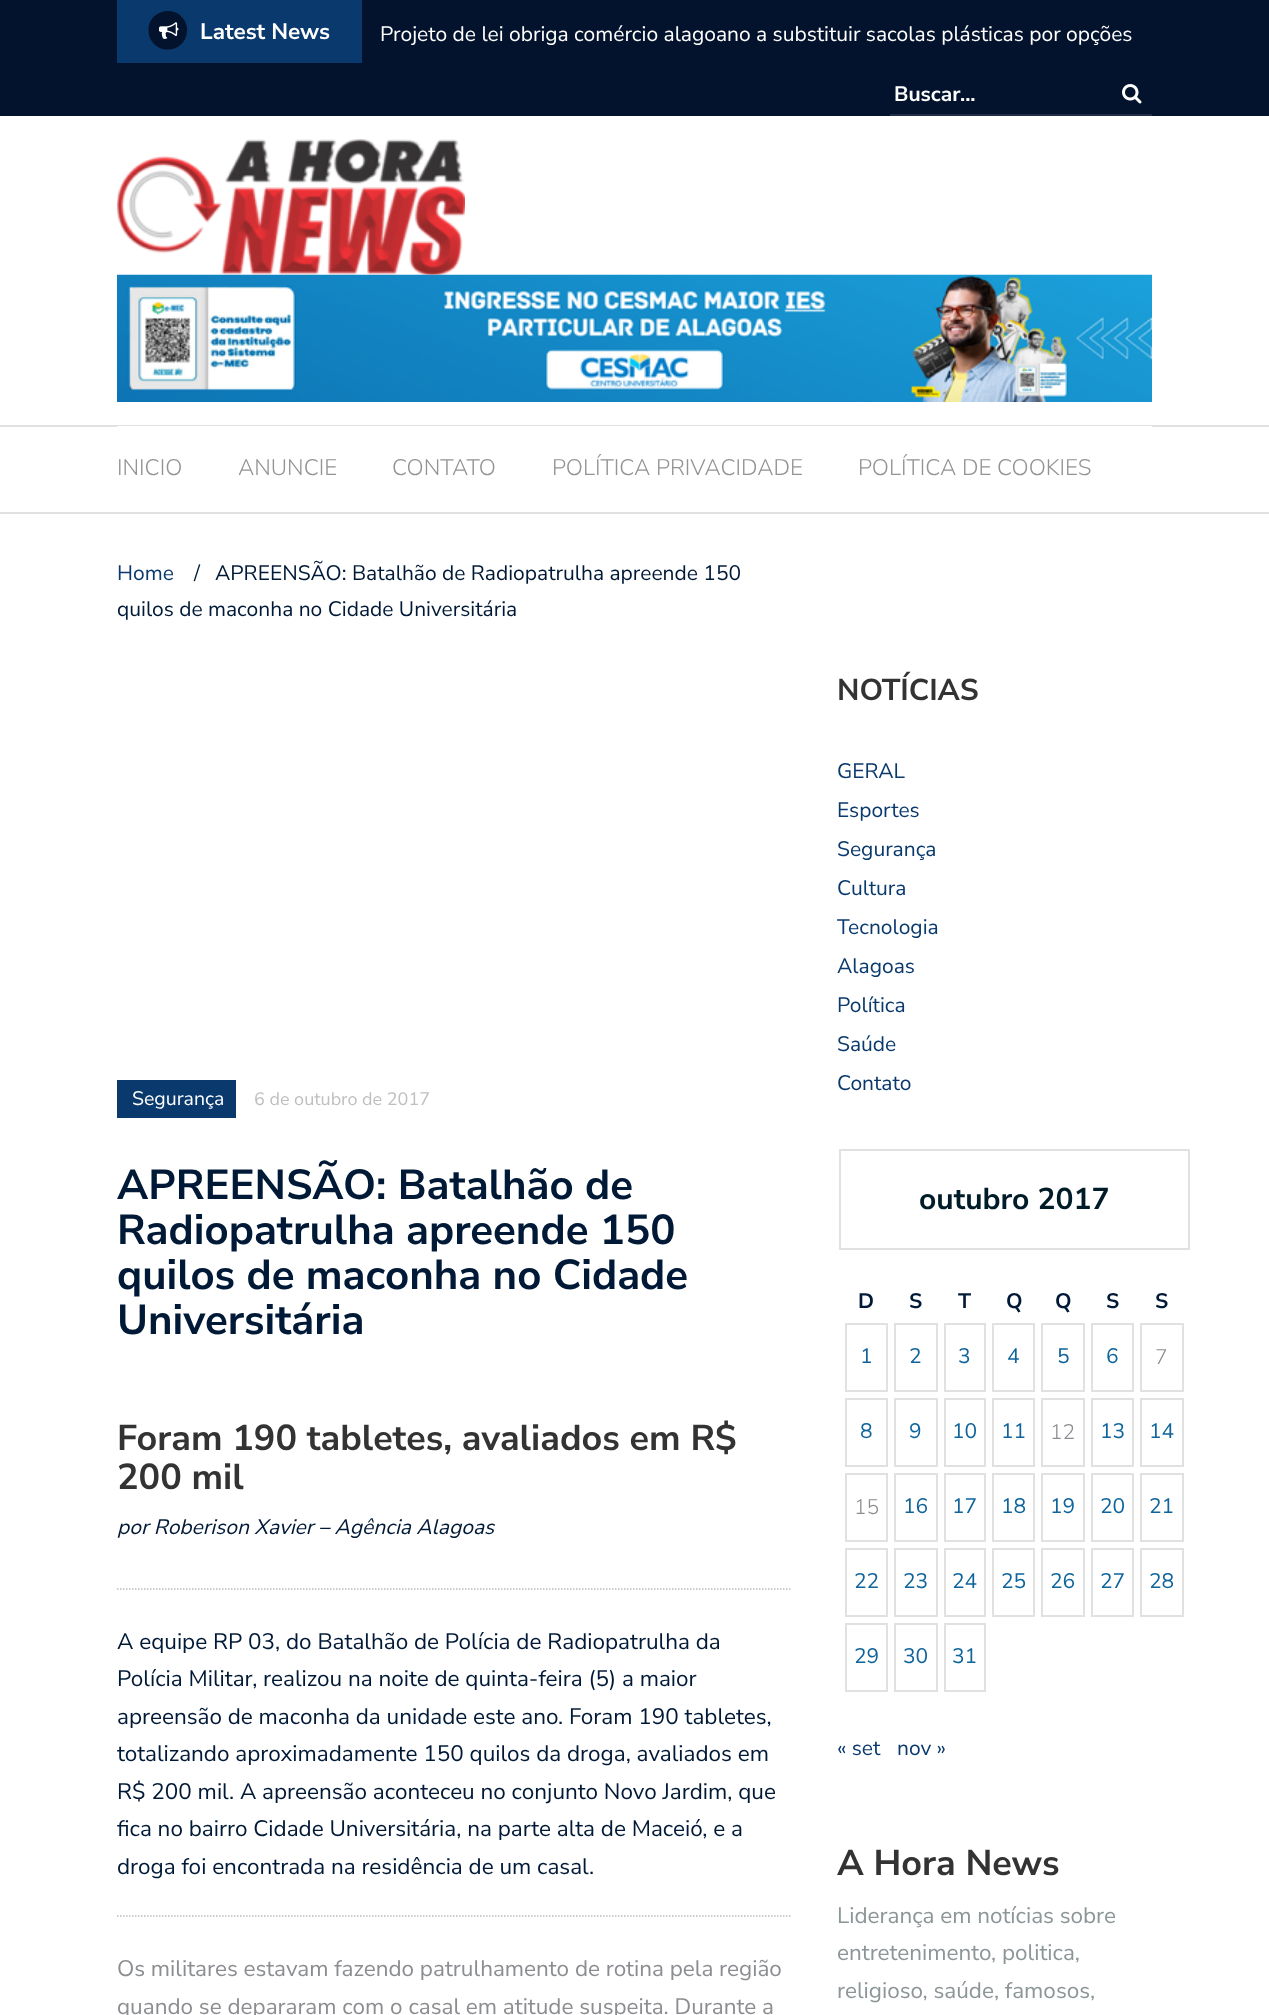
<svg xmlns="http://www.w3.org/2000/svg" width="1269" height="2015" viewBox="0 0 1269 2015">
  <rect width="100%" height="100%" fill="rgb(255,255,255)"/>
  <rect x="0" y="0" width="1269" height="116" fill="rgb(4,19,45)"/>
  <rect x="117" y="0" width="245" height="63" fill="rgb(10,57,109)"/>
  <path d="M184.5 20.5C186.5 24 187.5 28 187 31.5C186 50.5 160.5 56.5 151 40C149 37 148.5 33 148.5 29C149.5 10 175 4.5 184.5 20.5Z" fill="rgb(4,19,45)"/>
  <image x="159" y="22" width="20" height="17" href="pic1.png"/>
  <text x="200" y="39" font-family="Nunito Sans" font-size="22.5" font-weight="bold" fill="rgb(255,255,255)">Latest News</text>
  <text x="380" y="41" font-family="Nunito Sans" font-size="21" fill="rgb(255,255,255)">Projeto de lei obriga comércio alagoano a substituir sacolas plásticas por opções</text>
  <rect x="890" y="114" width="262" height="2" fill="rgb(32,45,68)"/>
  <text x="894" y="101" font-family="Nunito Sans" font-size="21" font-weight="bold" fill="rgb(255,255,255)">Buscar...</text>
  <image x="1122" y="84" width="20" height="20" href="pic2.png"/>
  <image x="117" y="139" width="348" height="136" href="pic3.png"/>
  <image x="117" y="274" width="1035" height="128" href="pic4.png"/>
  <rect x="0" y="425" width="1269" height="2" fill="rgb(225,225,225)"/>
  <rect x="0" y="512" width="1269" height="2" fill="rgb(225,225,225)"/>
  <rect x="117" y="426" width="1035" height="1" fill="rgb(255,255,255)"/>
  <g font-family="Nunito Sans" font-size="22.5" font-weight="300" fill="rgb(147,147,147)">
    <text x="117" y="475">INICIO</text>
    <text x="238" y="475">ANUNCIE</text>
    <text x="392" y="475">CONTATO</text>
    <text x="552" y="475">POLÍTICA PRIVACIDADE</text>
    <text x="858" y="475">POLÍTICA DE COOKIES</text>
  </g>
  <text x="117" y="580" font-family="Nunito Sans" font-size="21" fill="rgb(10,57,109)">Home</text>
  <g font-family="Nunito Sans" font-size="21" fill="rgb(0,25,54)">
    <text x="194" y="580">/</text>
    <text x="215" y="580">APREENSÃO: Batalhão de Radiopatrulha apreende 150</text>
    <text x="117" y="616">quilos de maconha no Cidade Universitária</text>
  </g>
  <rect x="117" y="1080" width="119" height="38" fill="rgb(10,57,109)"/>
  <text x="132" y="1105" font-family="Nunito Sans" font-size="19.5" fill="rgb(255,255,255)">Segurança</text>
  <text x="254" y="1105" font-family="Nunito Sans" font-size="18" fill="rgb(191,191,191)">6 de outubro de 2017</text>
  <g font-family="Nunito Sans" font-size="42" font-weight="bold" fill="rgb(0,25,54)">
    <text>
      <tspan x="117" y="1199">APREENSÃO: Batalhão de</tspan>
      <tspan x="117" y="1244">Radiopatrulha apreende 150</tspan>
      <tspan x="117" y="1289">quilos de maconha no Cidade</tspan>
      <tspan x="117" y="1334">Universitária</tspan>
    </text>
  </g>
  <g font-family="Nunito Sans" font-size="36" font-weight="bold" fill="rgb(51,51,51)">
    <text>
      <tspan x="117" y="1450">Foram 190 tabletes, avaliados em R$</tspan>
      <tspan x="117" y="1489">200 mil</tspan>
    </text>
  </g>
  <text x="117" y="1534" font-family="Nunito Sans" font-size="21" font-style="italic" fill="rgb(0,25,54)">por Roberison Xavier – Agência Alagoas</text>
  <path d="M117 1589H792" fill="none" stroke="rgb(186,186,186)" stroke-width="1.5" stroke-dasharray="1.5 1.5"/>
  <path d="M117 1916H792" fill="none" stroke="rgb(186,186,186)" stroke-width="1.5" stroke-dasharray="1.5 1.5"/>
  <g font-family="Nunito Sans" font-size="22.5" fill="rgb(0,25,54)">
    <text>
      <tspan x="117" y="1649">A equipe RP 03, do Batalhão de Polícia de Radiopatrulha da</tspan>
      <tspan x="117" y="1686">Polícia Militar, realizou na noite de quinta-feira (5) a maior</tspan>
      <tspan x="117" y="1724">apreensão de maconha da unidade este ano. Foram 190 tabletes,</tspan>
      <tspan x="117" y="1761">totalizando aproximadamente 150 quilos da droga, avaliados em</tspan>
      <tspan x="117" y="1799">R$ 200 mil. A apreensão aconteceu no conjunto Novo Jardim, que</tspan>
      <tspan x="117" y="1836">fica no bairro Cidade Universitária, na parte alta de Maceió, e a</tspan>
      <tspan x="117" y="1874">droga foi encontrada na residência de um casal.</tspan>
    </text>
  </g>
  <g font-family="Nunito Sans" font-size="22.5" fill="rgb(139,141,145)">
    <text>
      <tspan x="117" y="1976">Os militares estavam fazendo patrulhamento de rotina pela região</tspan>
      <tspan x="117" y="2014">quando se depararam com o casal em atitude suspeita. Durante a</tspan>
    </text>
  </g>
  <text x="837" y="700" font-family="Nunito Sans" font-size="30" font-weight="bold" fill="rgb(51,51,51)">NOTÍCIAS</text>
  <g font-family="Nunito Sans" font-size="21" fill="rgb(10,57,109)">
    <text>
      <tspan x="837" y="778">GERAL</tspan>
      <tspan x="837" y="817">Esportes</tspan>
      <tspan x="837" y="856">Segurança</tspan>
      <tspan x="837" y="895">Cultura</tspan>
      <tspan x="837" y="934">Tecnologia</tspan>
      <tspan x="837" y="973">Alagoas</tspan>
      <tspan x="837" y="1012">Política</tspan>
      <tspan x="837" y="1051">Saúde</tspan>
      <tspan x="837" y="1090">Contato</tspan>
    </text>
  </g>
  <rect x="840" y="1150" width="349" height="99" fill="none" stroke="rgb(225,225,225)" stroke-width="2"/>
  <text x="919" y="1209" font-family="Nunito Sans" font-size="30" font-weight="bold" fill="rgb(0,28,40)">outubro 2017</text>
  <g font-family="Nunito Sans" font-size="21" font-weight="bold" fill="rgb(0,25,54)">
    <text x="858" y="1308">D</text>
    <text x="909" y="1308">S</text>
    <text x="958" y="1308">T</text>
    <text x="1006" y="1308">Q</text>
    <text x="1055" y="1308">Q</text>
    <text x="1106" y="1308">S</text>
    <text x="1155" y="1308">S</text>
  </g>
  <rect x="846" y="1324" width="41" height="67" fill="none" stroke="rgb(225,225,225)" stroke-width="2"/>
  <text x="860" y="1363" font-family="Nunito Sans" font-size="21" fill="rgb(14,100,155)">1</text>
  <rect x="895" y="1324" width="42" height="67" fill="none" stroke="rgb(225,225,225)" stroke-width="2"/>
  <text x="909" y="1363" font-family="Nunito Sans" font-size="21" fill="rgb(14,100,155)">2</text>
  <rect x="945" y="1324" width="40" height="67" fill="none" stroke="rgb(225,225,225)" stroke-width="2"/>
  <text x="958" y="1363" font-family="Nunito Sans" font-size="21" fill="rgb(14,100,155)">3</text>
  <rect x="993" y="1324" width="41" height="67" fill="none" stroke="rgb(225,225,225)" stroke-width="2"/>
  <text x="1007" y="1363" font-family="Nunito Sans" font-size="21" fill="rgb(14,100,155)">4</text>
  <rect x="1042" y="1324" width="42" height="67" fill="none" stroke="rgb(225,225,225)" stroke-width="2"/>
  <text x="1057" y="1363" font-family="Nunito Sans" font-size="21" fill="rgb(14,100,155)">5</text>
  <rect x="1092" y="1324" width="41" height="67" fill="none" stroke="rgb(225,225,225)" stroke-width="2"/>
  <text x="1106" y="1363" font-family="Nunito Sans" font-size="21" fill="rgb(14,100,155)">6</text>
  <rect x="1141" y="1324" width="42" height="67" fill="none" stroke="rgb(225,225,225)" stroke-width="2"/>
  <text x="1155" y="1364" font-family="Nunito Sans" font-size="21" font-weight="300" fill="rgb(139,141,145)">7</text>
  <rect x="846" y="1399" width="41" height="67" fill="none" stroke="rgb(225,225,225)" stroke-width="2"/>
  <text x="860" y="1438" font-family="Nunito Sans" font-size="21" fill="rgb(14,100,155)">8</text>
  <rect x="895" y="1399" width="42" height="67" fill="none" stroke="rgb(225,225,225)" stroke-width="2"/>
  <text x="909" y="1438" font-family="Nunito Sans" font-size="21" fill="rgb(14,100,155)">9</text>
  <rect x="945" y="1399" width="40" height="67" fill="none" stroke="rgb(225,225,225)" stroke-width="2"/>
  <text x="952" y="1438" font-family="Nunito Sans" font-size="21" fill="rgb(14,100,155)">10</text>
  <rect x="993" y="1399" width="41" height="67" fill="none" stroke="rgb(225,225,225)" stroke-width="2"/>
  <text x="1001" y="1438" font-family="Nunito Sans" font-size="21" fill="rgb(14,100,155)">11</text>
  <rect x="1042" y="1399" width="42" height="67" fill="none" stroke="rgb(225,225,225)" stroke-width="2"/>
  <text x="1050" y="1439" font-family="Nunito Sans" font-size="21" font-weight="300" fill="rgb(139,141,145)">12</text>
  <rect x="1092" y="1399" width="41" height="67" fill="none" stroke="rgb(225,225,225)" stroke-width="2"/>
  <text x="1100" y="1438" font-family="Nunito Sans" font-size="21" fill="rgb(14,100,155)">13</text>
  <rect x="1141" y="1399" width="42" height="67" fill="none" stroke="rgb(225,225,225)" stroke-width="2"/>
  <text x="1149" y="1438" font-family="Nunito Sans" font-size="21" fill="rgb(14,100,155)">14</text>
  <rect x="846" y="1474" width="41" height="67" fill="none" stroke="rgb(225,225,225)" stroke-width="2"/>
  <text x="854" y="1514" font-family="Nunito Sans" font-size="21" font-weight="300" fill="rgb(139,141,145)">15</text>
  <rect x="895" y="1474" width="42" height="67" fill="none" stroke="rgb(225,225,225)" stroke-width="2"/>
  <text x="903" y="1513" font-family="Nunito Sans" font-size="21" fill="rgb(14,100,155)">16</text>
  <rect x="945" y="1474" width="40" height="67" fill="none" stroke="rgb(225,225,225)" stroke-width="2"/>
  <text x="952" y="1513" font-family="Nunito Sans" font-size="21" fill="rgb(14,100,155)">17</text>
  <rect x="993" y="1474" width="41" height="67" fill="none" stroke="rgb(225,225,225)" stroke-width="2"/>
  <text x="1001" y="1513" font-family="Nunito Sans" font-size="21" fill="rgb(14,100,155)">18</text>
  <rect x="1042" y="1474" width="42" height="67" fill="none" stroke="rgb(225,225,225)" stroke-width="2"/>
  <text x="1050" y="1513" font-family="Nunito Sans" font-size="21" fill="rgb(14,100,155)">19</text>
  <rect x="1092" y="1474" width="41" height="67" fill="none" stroke="rgb(225,225,225)" stroke-width="2"/>
  <text x="1100" y="1513" font-family="Nunito Sans" font-size="21" fill="rgb(14,100,155)">20</text>
  <rect x="1141" y="1474" width="42" height="67" fill="none" stroke="rgb(225,225,225)" stroke-width="2"/>
  <text x="1149" y="1513" font-family="Nunito Sans" font-size="21" fill="rgb(14,100,155)">21</text>
  <rect x="846" y="1549" width="41" height="67" fill="none" stroke="rgb(225,225,225)" stroke-width="2"/>
  <text x="854" y="1588" font-family="Nunito Sans" font-size="21" fill="rgb(14,100,155)">22</text>
  <rect x="895" y="1549" width="42" height="67" fill="none" stroke="rgb(225,225,225)" stroke-width="2"/>
  <text x="903" y="1588" font-family="Nunito Sans" font-size="21" fill="rgb(14,100,155)">23</text>
  <rect x="945" y="1549" width="40" height="67" fill="none" stroke="rgb(225,225,225)" stroke-width="2"/>
  <text x="952" y="1588" font-family="Nunito Sans" font-size="21" fill="rgb(14,100,155)">24</text>
  <rect x="993" y="1549" width="41" height="67" fill="none" stroke="rgb(225,225,225)" stroke-width="2"/>
  <text x="1001" y="1588" font-family="Nunito Sans" font-size="21" fill="rgb(14,100,155)">25</text>
  <rect x="1042" y="1549" width="42" height="67" fill="none" stroke="rgb(225,225,225)" stroke-width="2"/>
  <text x="1050" y="1588" font-family="Nunito Sans" font-size="21" fill="rgb(14,100,155)">26</text>
  <rect x="1092" y="1549" width="41" height="67" fill="none" stroke="rgb(225,225,225)" stroke-width="2"/>
  <text x="1100" y="1588" font-family="Nunito Sans" font-size="21" fill="rgb(14,100,155)">27</text>
  <rect x="1141" y="1549" width="42" height="67" fill="none" stroke="rgb(225,225,225)" stroke-width="2"/>
  <text x="1149" y="1588" font-family="Nunito Sans" font-size="21" fill="rgb(14,100,155)">28</text>
  <rect x="846" y="1624" width="41" height="67" fill="none" stroke="rgb(225,225,225)" stroke-width="2"/>
  <text x="854" y="1663" font-family="Nunito Sans" font-size="21" fill="rgb(14,100,155)">29</text>
  <rect x="895" y="1624" width="42" height="67" fill="none" stroke="rgb(225,225,225)" stroke-width="2"/>
  <text x="903" y="1663" font-family="Nunito Sans" font-size="21" fill="rgb(14,100,155)">30</text>
  <rect x="945" y="1624" width="40" height="67" fill="none" stroke="rgb(225,225,225)" stroke-width="2"/>
  <text x="952" y="1663" font-family="Nunito Sans" font-size="21" fill="rgb(14,100,155)">31</text>
  <g font-family="Nunito Sans" font-size="21" fill="rgb(10,57,109)">
    <text x="837" y="1755">« set</text>
    <text x="897" y="1755">nov »</text>
  </g>
  <text x="837" y="1875" font-family="Nunito Sans" font-size="36" font-weight="bold" fill="rgb(51,51,51)">A Hora News</text>
  <g font-family="Nunito Sans" font-size="22.5" fill="rgb(140,149,151)">
    <text>
      <tspan x="837" y="1923">Liderança em notícias sobre</tspan>
      <tspan x="837" y="1960">entretenimento, politica,</tspan>
      <tspan x="837" y="1998">religioso, saúde, famosos,</tspan>
    </text>
  </g>
</svg>
